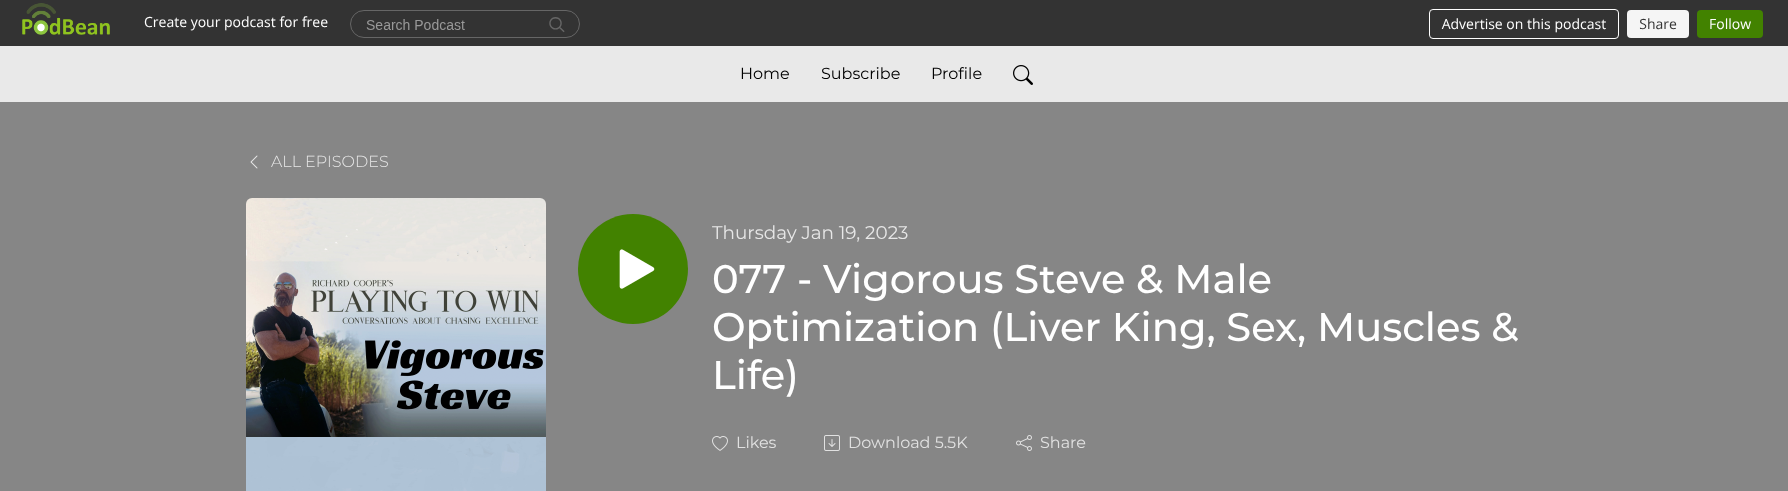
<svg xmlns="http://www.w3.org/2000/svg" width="1788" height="491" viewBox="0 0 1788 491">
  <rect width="100%" height="100%" fill="rgb(134,134,134)"/>
  <rect x="0" y="0" width="1788" height="46" fill="rgb(51,51,51)"/>
  <image x="22" y="3" width="1741" height="36" href="pic1.png"/>
  <rect x="0" y="46" width="1788" height="56" fill="rgb(233,233,233)"/>
  <g font-family="Montserrat" font-size="16" fill="rgb(0,0,0)">
    <text x="740" y="79">Home</text>
    <text x="821" y="79">Subscribe</text>
    <text x="931" y="79">Profile</text>
  </g>
  <image x="1013" y="65" width="20" height="20" href="pic2.png"/>
  <image x="250" y="155" width="8" height="14" href="pic3.png"/>
  <text x="271" y="167" font-family="Montserrat" font-size="16" font-weight="300" fill="rgb(231,231,231)">ALL EPISODES</text>
  <image x="246" y="198" width="300" height="293" href="pic4.png"/>
  <circle cx="633" cy="269" r="55" fill="rgb(66,130,0)"/>
  <image x="619" y="249" width="36" height="40" href="pic5.png"/>
  <text x="712" y="239" font-family="Montserrat" font-size="18.4" fill="rgb(231,231,231)">Thursday Jan 19, 2023</text>
  <g font-family="Montserrat" font-size="40" font-weight="500" fill="rgb(255,255,255)">
    <text>
      <tspan x="712" y="293">077 - Vigorous Steve &amp; Male</tspan>
      <tspan x="712" y="341">Optimization (Liver King, Sex, Muscles &amp;</tspan>
      <tspan x="712" y="389">Life)</tspan>
    </text>
  </g>
  <image x="712" y="436" width="16" height="15" href="pic6.png"/>
  <text x="736" y="448" font-family="Montserrat" font-size="16" fill="rgb(225,225,225)">Likes</text>
  <image x="824" y="435" width="16" height="16" href="pic7.png"/>
  <text x="848" y="448" font-family="Montserrat" font-size="16" fill="rgb(225,225,225)">Download 5.5K</text>
  <image x="1016" y="435" width="16" height="16" href="pic8.png"/>
  <text x="1040" y="448" font-family="Montserrat" font-size="16" fill="rgb(225,225,225)">Share</text>
</svg>
